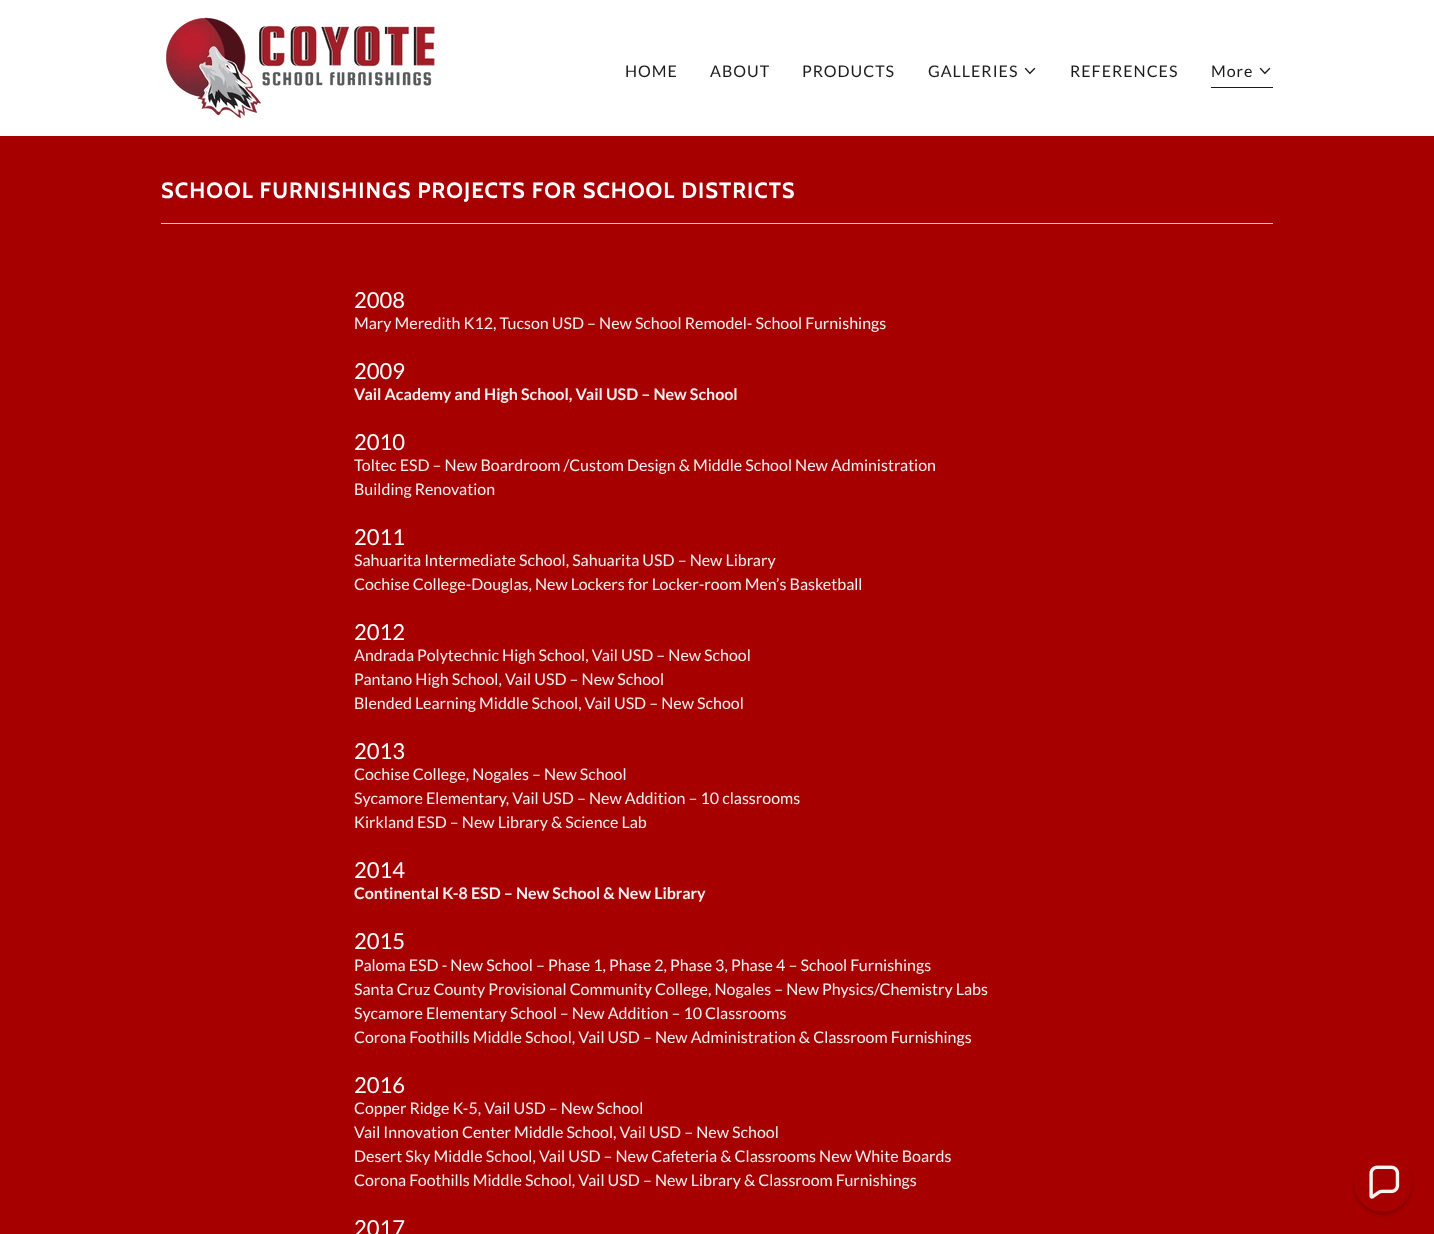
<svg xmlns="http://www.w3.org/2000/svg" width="1434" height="1234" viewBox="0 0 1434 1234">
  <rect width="100%" height="100%" fill="rgb(166,0,0)"/>
  <rect x="0" y="0" width="1434" height="136" fill="rgb(255,255,255)"/>
  <image x="166" y="17" width="269" height="102" href="pic1.png"/>
  <g font-family="Lato" font-size="16" letter-spacing="1" fill="rgb(27,27,27)">
    <text x="625" y="77">HOME</text>
    <text x="710" y="77">ABOUT</text>
    <text x="802" y="77">PRODUCTS</text>
    <text x="928" y="77">GALLERIES</text>
  </g>
  <image x="1024" y="67" width="12" height="8" href="pic2.png"/>
  <text x="1070" y="77" font-family="Lato" font-size="16" letter-spacing="1" fill="rgb(27,27,27)">REFERENCES</text>
  <rect x="1211" y="87" width="62" height="1" fill="rgb(27,27,27)"/>
  <text x="1211" y="77" font-family="Lato" font-size="16" letter-spacing="1" fill="rgb(27,27,27)">More</text>
  <image x="1259" y="67" width="12" height="8" href="pic2.png"/>
  <text x="161" y="198" font-family="Cabin" font-size="22" font-weight="bold" letter-spacing="1" fill="rgb(255,255,255)">SCHOOL FURNISHINGS PROJECTS FOR SCHOOL DISTRICTS</text>
  <rect x="161" y="223" width="1112" height="1" fill="rgb(222,207,207)"/>
  <text x="354" y="308" font-family="Lato" font-size="22" fill="rgb(255,255,255)">2008</text>
  <text x="354" y="329" font-family="Lato" font-size="16" fill="rgb(240,238,238)">Mary Meredith K12, Tucson USD – New School Remodel- School Furnishings</text>
  <text x="354" y="379" font-family="Lato" font-size="22" fill="rgb(255,255,255)">2009</text>
  <text x="354" y="400" font-family="Lato" font-size="16" font-weight="bold" fill="rgb(240,238,238)">Vail Academy and High School, Vail USD – New School</text>
  <text x="354" y="450" font-family="Lato" font-size="22" fill="rgb(255,255,255)">2010</text>
  <g font-family="Lato" font-size="16" fill="rgb(240,238,238)">
    <text>
      <tspan x="354" y="471">Toltec ESD – New Boardroom /Custom Design &amp; Middle School New Administration</tspan>
      <tspan x="354" y="495">Building Renovation</tspan>
    </text>
  </g>
  <text x="354" y="545" font-family="Lato" font-size="22" fill="rgb(255,255,255)">2011</text>
  <g font-family="Lato" font-size="16" fill="rgb(240,238,238)">
    <text>
      <tspan x="354" y="566">Sahuarita Intermediate School, Sahuarita USD – New Library</tspan>
      <tspan x="354" y="590">Cochise College-Douglas, New Lockers for Locker-room Men’s Basketball</tspan>
    </text>
  </g>
  <text x="354" y="640" font-family="Lato" font-size="22" fill="rgb(255,255,255)">2012</text>
  <g font-family="Lato" font-size="16" fill="rgb(240,238,238)">
    <text>
      <tspan x="354" y="661">Andrada Polytechnic High School, Vail USD – New School</tspan>
      <tspan x="354" y="685">Pantano High School, Vail USD – New School</tspan>
      <tspan x="354" y="709">Blended Learning Middle School, Vail USD – New School</tspan>
    </text>
  </g>
  <text x="354" y="759" font-family="Lato" font-size="22" fill="rgb(255,255,255)">2013</text>
  <g font-family="Lato" font-size="16" fill="rgb(240,238,238)">
    <text>
      <tspan x="354" y="780">Cochise College, Nogales – New School</tspan>
      <tspan x="354" y="804">Sycamore Elementary, Vail USD – New Addition – 10 classrooms</tspan>
      <tspan x="354" y="828">Kirkland ESD – New Library &amp; Science Lab</tspan>
    </text>
  </g>
  <text x="354" y="878" font-family="Lato" font-size="22" fill="rgb(255,255,255)">2014</text>
  <text x="354" y="899" font-family="Lato" font-size="16" font-weight="bold" fill="rgb(240,238,238)">Continental K-8 ESD – New School &amp; New Library</text>
  <text x="354" y="949" font-family="Lato" font-size="22" fill="rgb(255,255,255)">2015</text>
  <g font-family="Lato" font-size="16" fill="rgb(240,238,238)">
    <text>
      <tspan x="354" y="971">Paloma ESD - New School – Phase 1, Phase 2, Phase 3, Phase 4 – School Furnishings</tspan>
      <tspan x="354" y="995">Santa Cruz County Provisional Community College, Nogales – New Physics/Chemistry Labs</tspan>
      <tspan x="354" y="1019">Sycamore Elementary School – New Addition – 10 Classrooms</tspan>
      <tspan x="354" y="1043">Corona Foothills Middle School, Vail USD – New Administration &amp; Classroom Furnishings</tspan>
    </text>
  </g>
  <text x="354" y="1093" font-family="Lato" font-size="22" fill="rgb(255,255,255)">2016</text>
  <g font-family="Lato" font-size="16" fill="rgb(240,238,238)">
    <text>
      <tspan x="354" y="1114">Copper Ridge K-5, Vail USD – New School</tspan>
      <tspan x="354" y="1138">Vail Innovation Center Middle School, Vail USD – New School</tspan>
      <tspan x="354" y="1162">Desert Sky Middle School, Vail USD – New Cafeteria &amp; Classrooms New White Boards</tspan>
      <tspan x="354" y="1186">Corona Foothills Middle School, Vail USD – New Library &amp; Classroom Furnishings</tspan>
    </text>
  </g>
  <text x="354" y="1236" font-family="Lato" font-size="22" fill="rgb(255,255,255)">2017</text>
  <rect x="1354" y="1157" width="58" height="58" rx="29" fill="rgba(8,0,0,0.2)" filter="blur(1.5px)"/>
  <circle cx="1383" cy="1183" r="29" fill="rgb(166,0,0)"/>
  <image x="1369" y="1165" width="31" height="34" href="pic3.png"/>
</svg>
